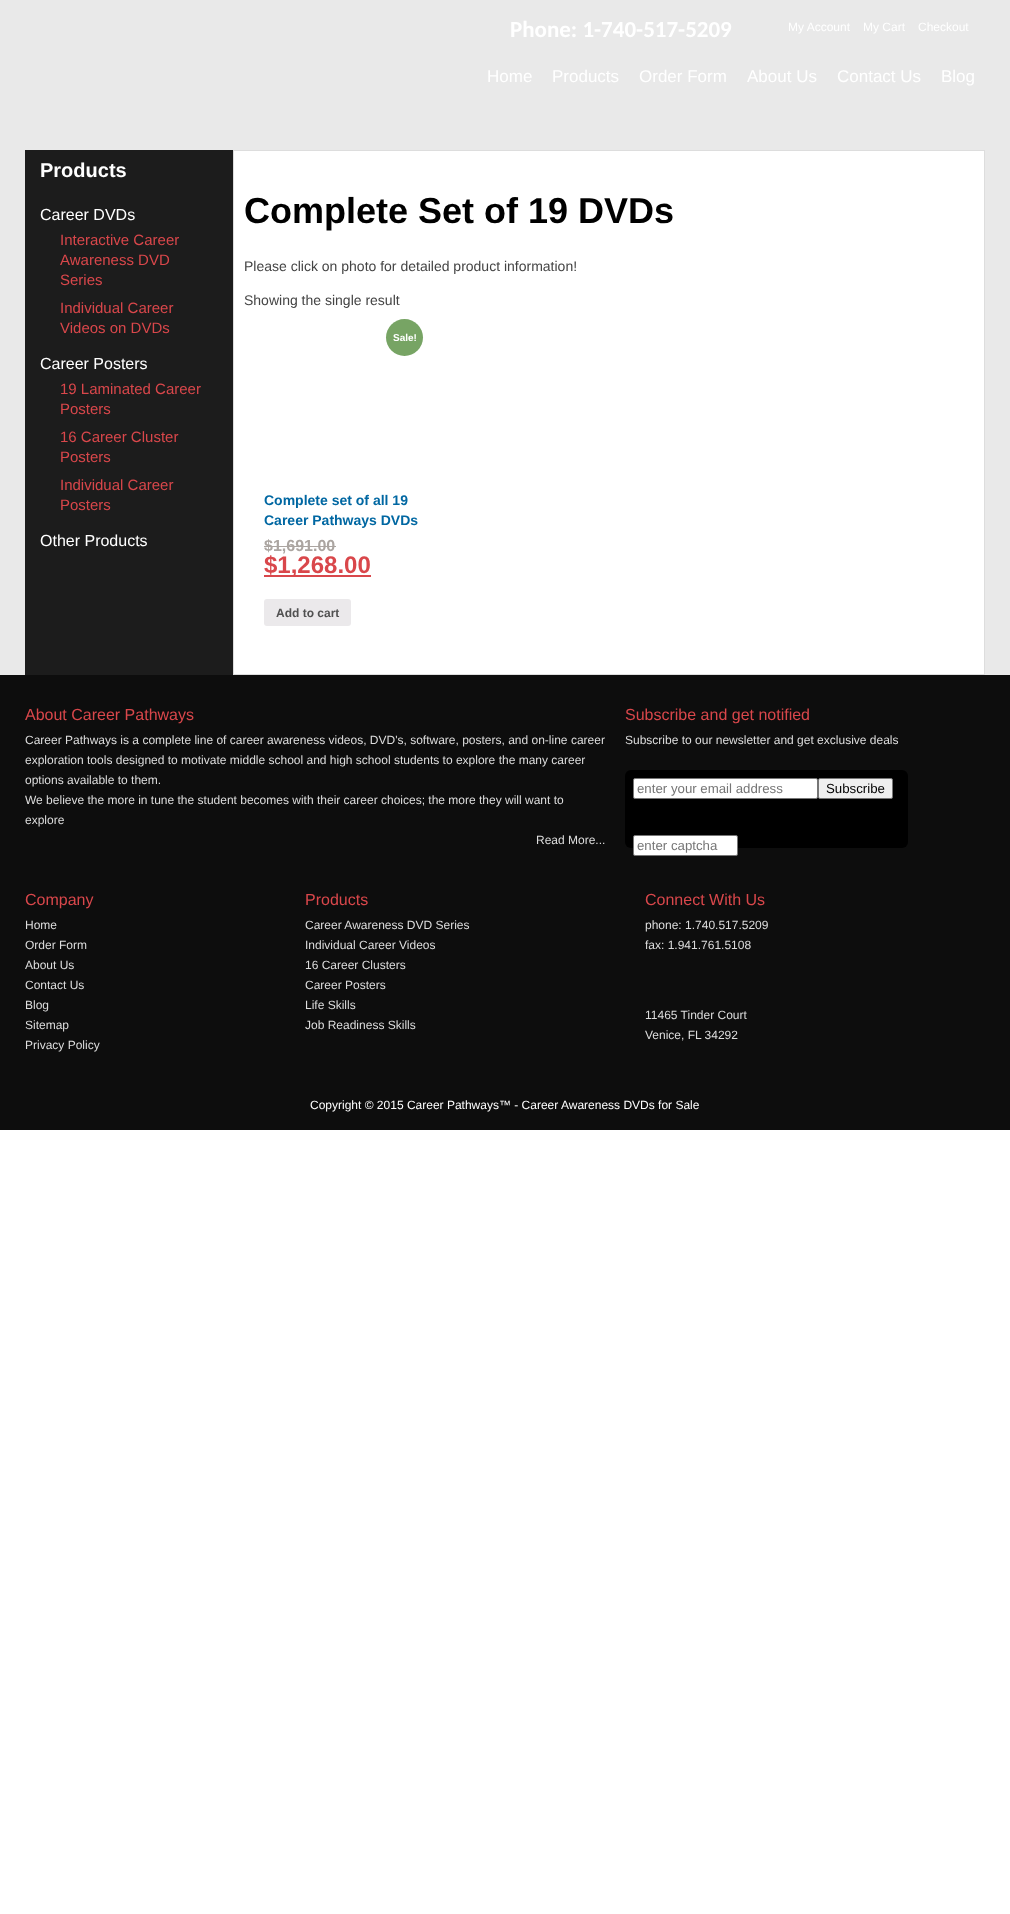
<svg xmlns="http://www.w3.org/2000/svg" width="1010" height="1914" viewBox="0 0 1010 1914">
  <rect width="100%" height="100%" fill="rgb(255,255,255)"/>
  <rect x="0" y="0" width="1010" height="675" fill="rgb(233,233,233)"/>
  <text x="510" y="37" font-family="Carlito" font-size="23" font-weight="bold" fill="rgb(255,255,255)">Phone: 1-740-517-5209</text>
  <g font-family="Liberation Sans" font-size="12" fill="rgb(255,255,255)">
    <text x="788" y="31">My Account</text>
    <text x="863" y="31">My Cart</text>
    <text x="918" y="31">Checkout</text>
  </g>
  <g font-family="Liberation Sans" font-size="17" fill="rgb(255,255,255)">
    <text x="487" y="82">Home</text>
    <text x="552" y="82">Products</text>
    <text x="639" y="82">Order Form</text>
    <text x="747" y="82">About Us</text>
    <text x="837" y="82">Contact Us</text>
    <text x="941" y="82">Blog</text>
  </g>
  <rect x="25" y="150" width="208" height="525" fill="rgb(28,28,28)"/>
  <text x="40" y="177" font-family="Liberation Sans" font-size="20" font-weight="bold" fill="rgb(255,255,255)">Products</text>
  <text x="40" y="220" font-family="Liberation Sans" font-size="16" fill="rgb(255,255,255)">Career DVDs</text>
  <g font-family="Liberation Sans" font-size="15" fill="rgb(217,71,75)">
    <text>
      <tspan x="60" y="245">Interactive Career</tspan>
      <tspan x="60" y="265">Awareness DVD</tspan>
      <tspan x="60" y="285">Series</tspan>
      <tspan x="60" y="313">Individual Career</tspan>
      <tspan x="60" y="333">Videos on DVDs</tspan>
    </text>
  </g>
  <text x="40" y="369" font-family="Liberation Sans" font-size="16" fill="rgb(255,255,255)">Career Posters</text>
  <g font-family="Liberation Sans" font-size="15" fill="rgb(217,71,75)">
    <text>
      <tspan x="60" y="394">19 Laminated Career</tspan>
      <tspan x="60" y="414">Posters</tspan>
      <tspan x="60" y="442">16 Career Cluster</tspan>
      <tspan x="60" y="462">Posters</tspan>
      <tspan x="60" y="490">Individual Career</tspan>
      <tspan x="60" y="510">Posters</tspan>
    </text>
  </g>
  <text x="40" y="546" font-family="Liberation Sans" font-size="16" fill="rgb(255,255,255)">Other Products</text>
  <rect x="233.5" y="150.5" width="751" height="524" fill="rgb(255,255,255)" stroke="rgb(221,221,221)"/>
  <text x="244" y="223" font-family="Liberation Sans" font-size="36" font-weight="bold" fill="rgb(0,0,0)">Complete Set of 19 DVDs</text>
  <g font-family="Liberation Sans" font-size="14" fill="rgb(68,68,68)">
    <text x="244" y="271">Please click on photo for detailed product information!</text>
    <text x="244" y="305">Showing the single result</text>
  </g>
  <circle cx="404.5" cy="337.5" r="18.5" fill="rgb(119,164,100)"/>
  <text x="393" y="341" font-family="Liberation Sans" font-size="10" font-weight="bold" fill="rgb(255,255,255)">Sale!</text>
  <g font-family="Liberation Sans" font-size="14" font-weight="bold" fill="rgb(0,103,162)">
    <text>
      <tspan x="264" y="505">Complete set of all 19</tspan>
      <tspan x="264" y="525">Career Pathways DVDs</tspan>
    </text>
  </g>
  <text x="264" y="551" font-family="Liberation Sans" font-size="16" font-weight="bold" fill="rgb(171,165,161)">$1,691.00</text>
  <rect x="264" y="546" width="72" height="1" fill="rgb(171,165,161)"/>
  <rect x="264" y="575" width="107" height="2" fill="rgb(217,71,75)"/>
  <text x="264" y="573" font-family="Liberation Sans" font-size="24" font-weight="bold" fill="rgb(217,71,75)">$1,268.00</text>
  <rect x="264" y="599" width="87" height="27" rx="3" fill="rgb(235,233,235)"/>
  <text x="276" y="617" font-family="Liberation Sans" font-size="12" font-weight="bold" fill="rgb(81,81,81)">Add to cart</text>
  <rect x="0" y="675" width="1010" height="455" fill="rgb(13,13,13)"/>
  <text x="25" y="720" font-family="Liberation Sans" font-size="16" fill="rgb(217,71,75)">About Career Pathways</text>
  <g font-family="Liberation Sans" font-size="12" fill="rgb(221,221,221)">
    <text>
      <tspan x="25" y="744">Career Pathways is a complete line of career awareness videos, DVD's, software, posters, and on-line career</tspan>
      <tspan x="25" y="764">exploration tools designed to motivate middle school and high school students to explore the many career</tspan>
      <tspan x="25" y="784">options available to them.</tspan>
      <tspan x="25" y="804">We believe the more in tune the student becomes with their career choices; the more they will want to</tspan>
      <tspan x="25" y="824">explore</tspan>
    </text>
    <text x="536" y="844">Read More...</text>
  </g>
  <text x="625" y="720" font-family="Liberation Sans" font-size="16" fill="rgb(217,71,75)">Subscribe and get notified</text>
  <text x="625" y="744" font-family="Liberation Sans" font-size="12" fill="rgb(221,221,221)">Subscribe to our newsletter and get exclusive deals</text>
  <rect x="625" y="770" width="283" height="78" rx="6" fill="rgb(0,0,0)"/>
  <rect x="633.5" y="778.5" width="184" height="20" rx="1.5" fill="rgb(255,255,255)" stroke="rgb(118,118,118)"/>
  <text x="637" y="793" font-family="Liberation Sans" font-size="13.25" fill="rgb(117,117,117)">enter your email address</text>
  <rect x="818.5" y="778.5" width="74" height="20" rx="1.5" fill="rgb(239,239,239)" stroke="rgb(118,118,118)"/>
  <text x="826" y="793" font-family="Liberation Sans" font-size="13.25" fill="rgb(0,0,0)">Subscribe</text>
  <rect x="633.5" y="835.5" width="104" height="20" rx="1.5" fill="rgb(255,255,255)" stroke="rgb(118,118,118)"/>
  <text x="637" y="850" font-family="Liberation Sans" font-size="13.25" fill="rgb(117,117,117)">enter captcha</text>
  <text x="25" y="905" font-family="Liberation Sans" font-size="16" fill="rgb(217,71,75)">Company</text>
  <g font-family="Liberation Sans" font-size="12" fill="rgb(221,221,221)">
    <text>
      <tspan x="25" y="929">Home</tspan>
      <tspan x="25" y="949">Order Form</tspan>
      <tspan x="25" y="969">About Us</tspan>
      <tspan x="25" y="989">Contact Us</tspan>
      <tspan x="25" y="1009">Blog</tspan>
      <tspan x="25" y="1029">Sitemap</tspan>
      <tspan x="25" y="1049">Privacy Policy</tspan>
    </text>
  </g>
  <text x="305" y="905" font-family="Liberation Sans" font-size="16" fill="rgb(217,71,75)">Products</text>
  <g font-family="Liberation Sans" font-size="12" fill="rgb(221,221,221)">
    <text>
      <tspan x="305" y="929">Career Awareness DVD Series</tspan>
      <tspan x="305" y="949">Individual Career Videos</tspan>
      <tspan x="305" y="969">16 Career Clusters</tspan>
      <tspan x="305" y="989">Career Posters</tspan>
      <tspan x="305" y="1009">Life Skills</tspan>
      <tspan x="305" y="1029">Job Readiness Skills</tspan>
    </text>
  </g>
  <text x="645" y="905" font-family="Liberation Sans" font-size="16" fill="rgb(217,71,75)">Connect With Us</text>
  <g font-family="Liberation Sans" font-size="12" fill="rgb(221,221,221)">
    <text>
      <tspan x="645" y="929">phone: 1.740.517.5209</tspan>
      <tspan x="645" y="949">fax: 1.941.761.5108</tspan>
    </text>
    <text>
      <tspan x="645" y="1019">11465 Tinder Court</tspan>
      <tspan x="645" y="1039">Venice, FL 34292</tspan>
    </text>
  </g>
  <text x="310" y="1109" font-family="Liberation Sans" font-size="12" fill="rgb(255,255,255)">Copyright © 2015 Career Pathways™ - Career Awareness DVDs for Sale</text>
</svg>
